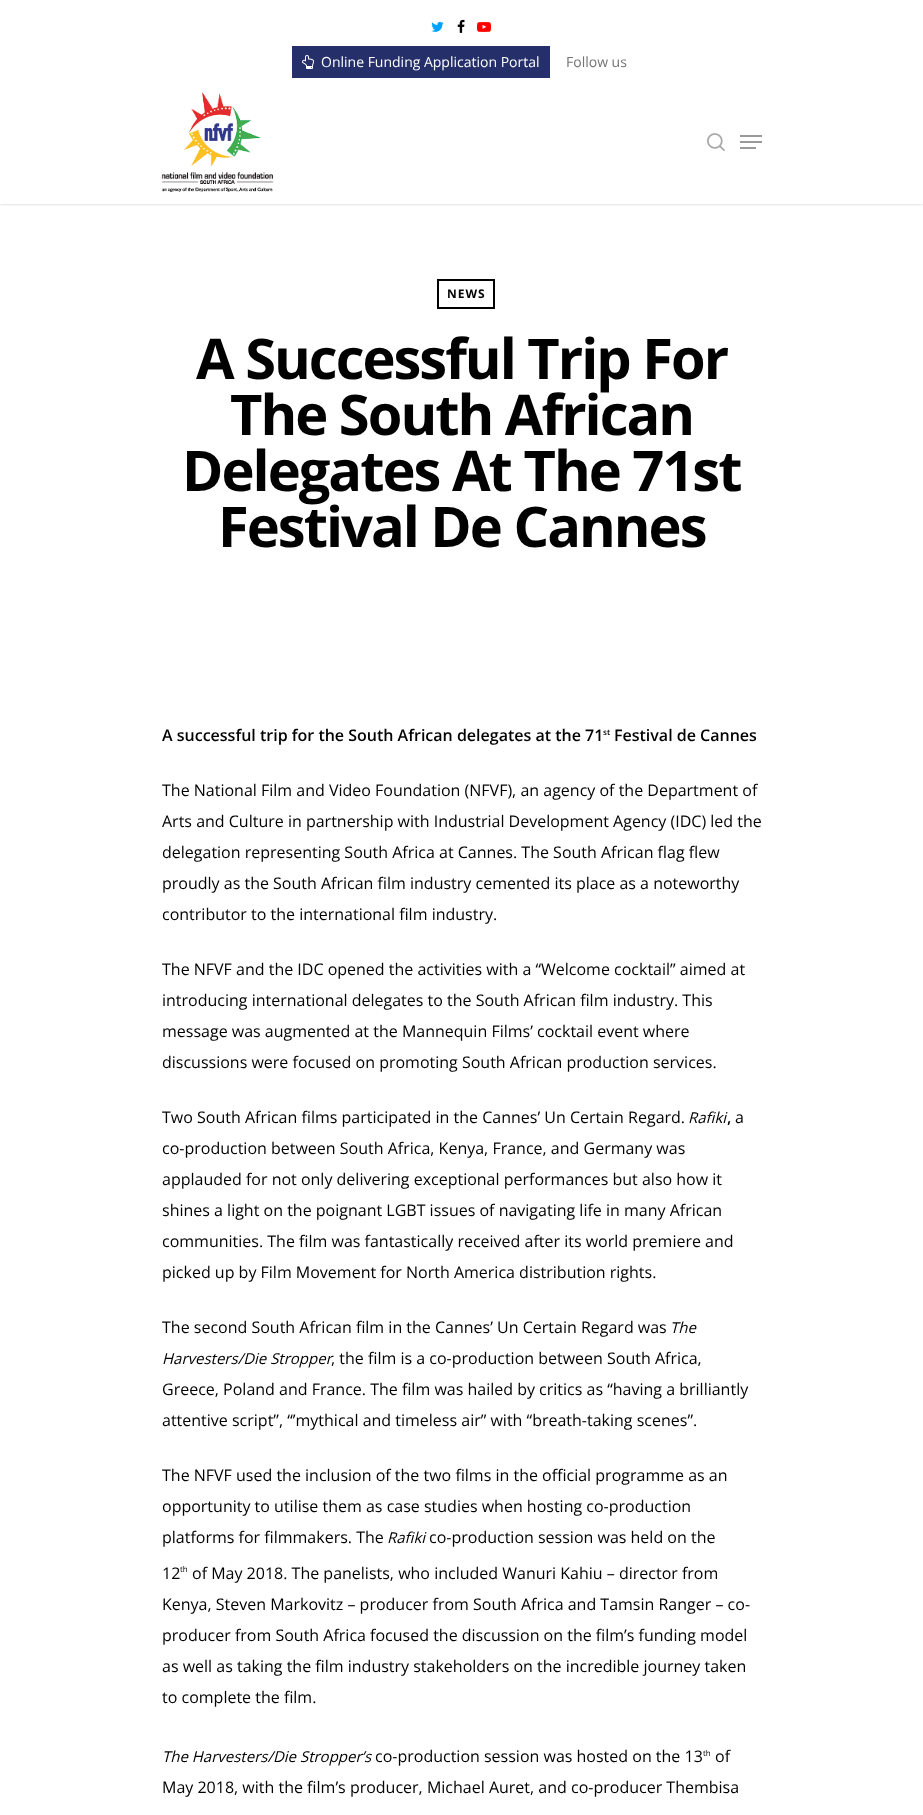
<svg xmlns="http://www.w3.org/2000/svg" width="923" height="1815" viewBox="0 0 923 1815">
  <defs>
    <clipPath id="clip1"><rect x="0" y="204" width="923" height="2"/></clipPath>
  </defs>
  <rect width="100%" height="100%" fill="rgb(255,255,255)"/>
  <g clip-path="url(#clip1)">
    <rect x="0" y="0" width="923" height="204" fill="rgba(0,0,0,0.22)" filter="blur(1.5px)"/>
  </g>
  <image x="431" y="21" width="13" height="11" href="pic1.png"/>
  <image x="457" y="19" width="8" height="14" href="pic2.png"/>
  <image x="477" y="22" width="14" height="10" href="pic3.png"/>
  <rect x="292" y="46" width="258" height="32" fill="rgb(37,47,106)"/>
  <image x="302" y="55" width="12" height="14" href="pic4.png"/>
  <text x="321" y="67" font-family="Open Sans" font-size="14" fill="rgb(255,255,255)">Online Funding Application Portal</text>
  <text x="566" y="67" font-family="Open Sans" font-size="14" fill="rgb(115,115,115)">Follow us</text>
  <image x="161" y="92" width="113" height="100" href="pic5.png"/>
  <image x="707" y="133" width="18" height="18" href="pic6.png"/>
  <rect x="740" y="135" width="22" height="2" fill="rgb(153,153,153)"/>
  <rect x="740" y="147" width="16" height="2" fill="rgb(153,153,153)"/>
  <rect x="740" y="141" width="22" height="2" fill="rgb(153,153,153)"/>
  <rect x="438" y="280" width="56" height="28" fill="none" stroke="rgb(0,0,0)" stroke-width="2"/>
  <text x="447" y="298" font-family="Open Sans" font-size="12" font-weight="bold" letter-spacing="1" fill="rgb(0,0,0)">NEWS</text>
  <g font-family="Open Sans" font-size="56" font-weight="bold" letter-spacing="-2" fill="rgb(0,0,0)">
    <text x="196" y="379">A Successful Trip For</text>
    <text x="230" y="435">The South African</text>
    <text x="182" y="491">Delegates At The 71st</text>
    <text x="218" y="547">Festival De Cannes</text>
  </g>
  <text x="162" y="741" font-family="Open Sans" font-size="16" font-weight="600" fill="rgb(0,0,0)">A successful trip for the South African delegates at the 71</text>
  <text x="603" y="735" font-family="Open Sans" font-size="8" font-weight="600" fill="rgb(0,0,0)">st</text>
  <text x="614" y="741" font-family="Open Sans" font-size="16" font-weight="600" fill="rgb(0,0,0)">Festival de Cannes</text>
  <g font-family="Open Sans" font-size="16" fill="rgb(0,0,0)">
    <text>
      <tspan x="162" y="796">The National Film and Video Foundation (NFVF), an agency of the Department of</tspan>
      <tspan x="162" y="827">Arts and Culture in partnership with Industrial Development Agency (IDC) led the</tspan>
      <tspan x="162" y="858">delegation representing South Africa at Cannes. The South African flag flew</tspan>
      <tspan x="162" y="889">proudly as the South African film industry cemented its place as a noteworthy</tspan>
      <tspan x="162" y="920">contributor to the international film industry.</tspan>
    </text>
    <text>
      <tspan x="162" y="975">The NFVF and the IDC opened the activities with a “Welcome cocktail” aimed at</tspan>
      <tspan x="162" y="1006">introducing international delegates to the South African film industry. This</tspan>
      <tspan x="162" y="1037">message was augmented at the Mannequin Films’ cocktail event where</tspan>
      <tspan x="162" y="1068">discussions were focused on promoting South African production services.</tspan>
    </text>
    <text x="162" y="1123">Two South African films participated in the Cannes’ Un Certain Regard.</text>
  </g>
  <text x="688" y="1123" font-family="Open Sans" font-size="15" font-style="italic" fill="rgb(0,0,0)">Rafiki</text>
  <text x="727" y="1123" font-family="Open Sans" font-size="16" font-weight="600" fill="rgb(0,0,0)">,</text>
  <g font-family="Open Sans" font-size="16" fill="rgb(0,0,0)">
    <text x="735" y="1123">a</text>
    <text>
      <tspan x="162" y="1154">co-production between South Africa, Kenya, France, and Germany was</tspan>
      <tspan x="162" y="1185">applauded for not only delivering exceptional performances but also how it</tspan>
      <tspan x="162" y="1216">shines a light on the poignant LGBT issues of navigating life in many African</tspan>
      <tspan x="162" y="1247">communities. The film was fantastically received after its world premiere and</tspan>
      <tspan x="162" y="1278">picked up by Film Movement for North America distribution rights.</tspan>
    </text>
    <text x="162" y="1333">The second South African film in the Cannes’ Un Certain Regard was</text>
  </g>
  <g font-family="Open Sans" font-size="15" font-style="italic" fill="rgb(0,0,0)">
    <text x="670" y="1333">The</text>
    <text x="162" y="1364">Harvesters/Die Stropper</text>
  </g>
  <g font-family="Open Sans" font-size="16" fill="rgb(0,0,0)">
    <text x="331" y="1364">, the film is a co-production between South Africa,</text>
    <text>
      <tspan x="162" y="1395">Greece, Poland and France. The film was hailed by critics as “having a brilliantly</tspan>
      <tspan x="162" y="1426">attentive script”, “’mythical and timeless air” with “breath-taking scenes”.</tspan>
    </text>
    <text>
      <tspan x="162" y="1481">The NFVF used the inclusion of the two films in the official programme as an</tspan>
      <tspan x="162" y="1512">opportunity to utilise them as case studies when hosting co-production</tspan>
      <tspan x="162" y="1543">platforms for filmmakers. The</tspan>
    </text>
  </g>
  <text x="387" y="1543" font-family="Open Sans" font-size="15" font-style="italic" fill="rgb(0,0,0)">Rafiki</text>
  <g font-family="Open Sans" font-size="16" fill="rgb(0,0,0)">
    <text x="429" y="1543">co-production session was held on the</text>
    <text x="162" y="1579">12</text>
  </g>
  <text x="180" y="1572" font-family="Open Sans" font-size="8" fill="rgb(0,0,0)">th</text>
  <g font-family="Open Sans" font-size="16" fill="rgb(0,0,0)">
    <text x="192" y="1579">of May 2018. The panelists, who included Wanuri Kahiu – director from</text>
    <text>
      <tspan x="162" y="1610">Kenya, Steven Markovitz – producer from South Africa and Tamsin Ranger – co-</tspan>
      <tspan x="162" y="1641">producer from South Africa focused the discussion on the film’s funding model</tspan>
      <tspan x="162" y="1672">as well as taking the film industry stakeholders on the incredible journey taken</tspan>
      <tspan x="162" y="1703">to complete the film.</tspan>
    </text>
  </g>
  <text x="162" y="1762" font-family="Open Sans" font-size="15" font-style="italic" fill="rgb(0,0,0)">The Harvesters/Die Stropper’s</text>
  <text x="375" y="1762" font-family="Open Sans" font-size="16" fill="rgb(0,0,0)">co-production session was hosted on the 13</text>
  <text x="703" y="1756" font-family="Open Sans" font-size="8" fill="rgb(0,0,0)">th</text>
  <g font-family="Open Sans" font-size="16" fill="rgb(0,0,0)">
    <text x="715" y="1762">of</text>
    <text x="162" y="1793">May 2018, with the film’s producer, Michael Auret, and co-producer Thembisa</text>
  </g>
</svg>
